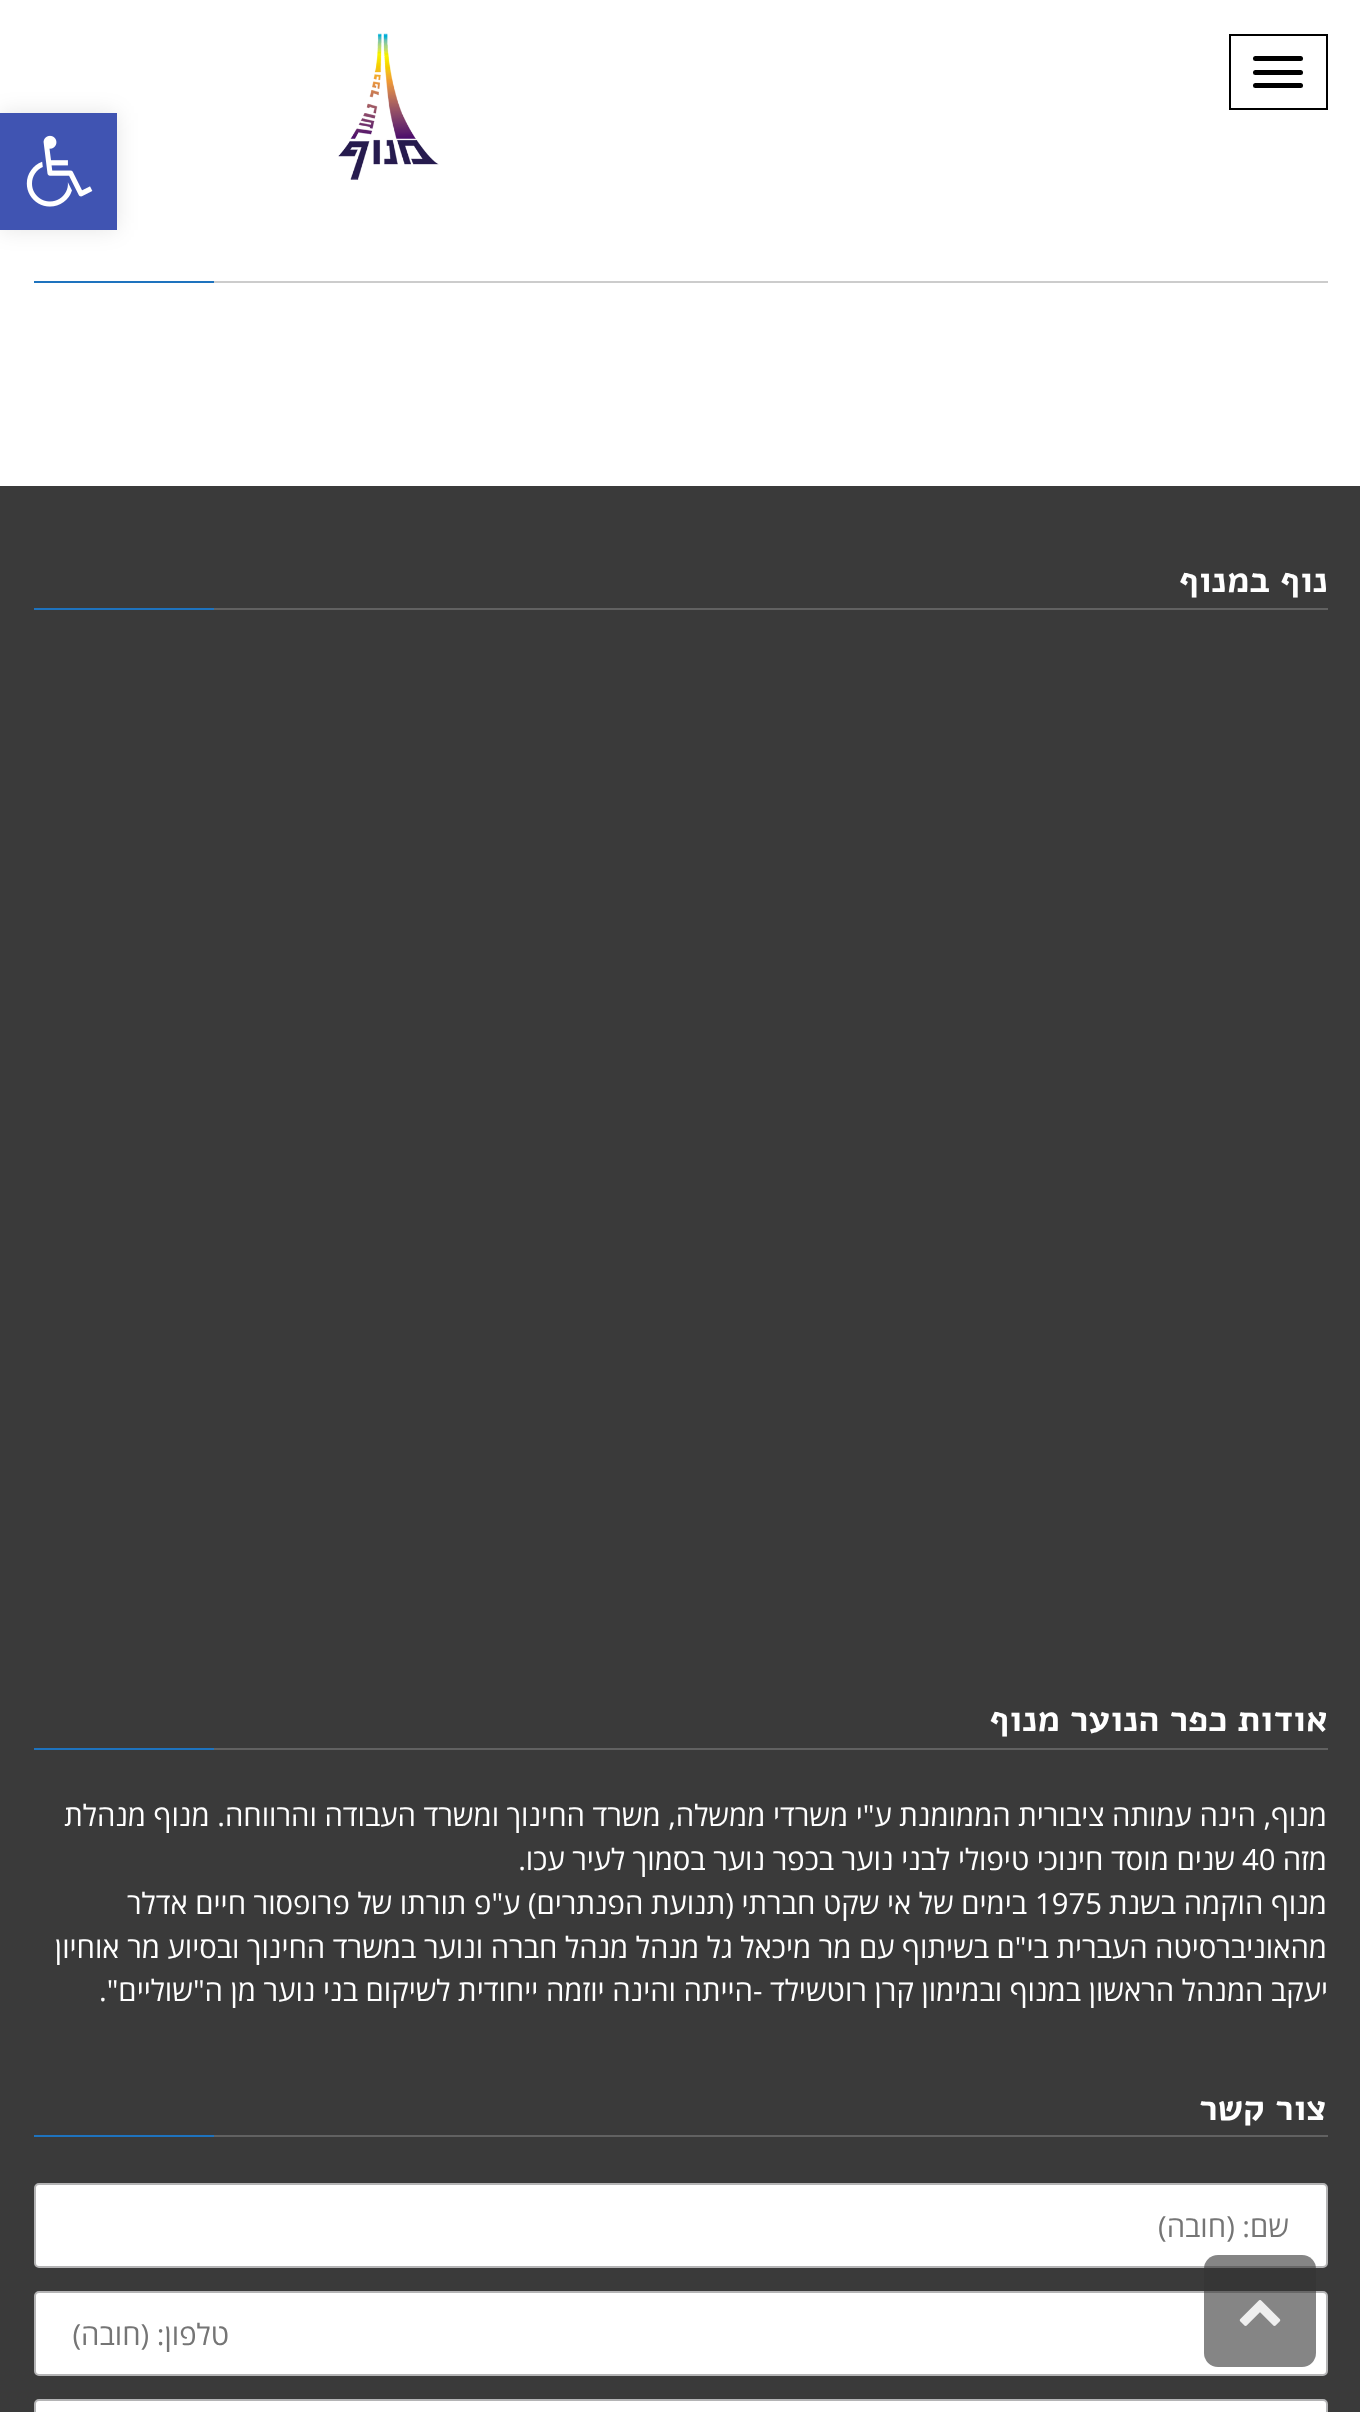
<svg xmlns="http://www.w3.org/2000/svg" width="1360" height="2412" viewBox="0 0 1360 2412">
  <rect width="100%" height="100%" fill="rgb(255,255,255)"/>
  <rect x="0" y="113" width="117" height="117" fill="rgba(0,0,0,0.1)" filter="blur(11px)"/>
  <rect x="0" y="113" width="117" height="117" fill="rgb(64,84,178)"/>
  <image x="26" y="135" width="67" height="72" href="pic1.png"/>
  <rect x="1230" y="35" width="97" height="74" fill="none" stroke="rgb(0,0,0)" stroke-width="2"/>
  <rect x="1253" y="56" width="50" height="5" rx="2.5" fill="rgb(0,0,0)"/>
  <rect x="1253" y="70" width="50" height="5" rx="2.5" fill="rgb(0,0,0)"/>
  <rect x="1253" y="83" width="50" height="5" rx="2.5" fill="rgb(0,0,0)"/>
  <image x="338" y="33" width="101" height="147" href="pic2.png"/>
  <rect x="214" y="281" width="1114" height="2" fill="rgb(204,204,204)"/>
  <rect x="34" y="281" width="180" height="2" fill="rgb(30,115,190)"/>
  <rect x="0" y="486" width="1360" height="1926" fill="rgb(58,58,58)"/>
  <rect x="214" y="608" width="1114" height="2" fill="rgb(97,97,97)"/>
  <text x="1328" y="592" font-family="Alef" font-size="36" font-weight="bold" direction="rtl" fill="rgb(255,255,255)">נוף במנוף</text>
  <rect x="34" y="608" width="180" height="2" fill="rgb(30,115,190)"/>
  <rect x="214" y="1748" width="1114" height="2" fill="rgb(97,97,97)"/>
  <text x="1328" y="1731" font-family="Alef" font-size="36" font-weight="bold" direction="rtl" fill="rgb(255,255,255)">אודות כפר הנוער מנוף</text>
  <rect x="34" y="1748" width="180" height="2" fill="rgb(30,115,190)"/>
  <g font-family="Open Sans" font-size="29.25" direction="rtl" fill="rgb(255,255,255)">
    <text>
      <tspan x="1327" y="1826">מנוף, הינה עמותה ציבורית הממומנת ע"י משרדי ממשלה, משרד החינוך ומשרד העבודה והרווחה. מנוף מנהלת</tspan>
      <tspan x="1327" y="1870">מזה</tspan>
    </text>
  </g>
  <text x="1242" y="1870" font-family="Open Sans" font-size="29.25" fill="rgb(255,255,255)">40</text>
  <g font-family="Open Sans" font-size="29.25" direction="rtl" fill="rgb(255,255,255)">
    <text x="1235" y="1870">שנים מוסד חינוכי טיפולי לבני נוער בכפר נוער בסמוך לעיר עכו.</text>
    <text x="1327" y="1914">מנוף הוקמה בשנת</text>
  </g>
  <text x="1035" y="1914" font-family="Open Sans" font-size="29.25" fill="rgb(255,255,255)">1975</text>
  <g font-family="Open Sans" font-size="29.25" direction="rtl" fill="rgb(255,255,255)">
    <text x="1027" y="1914">בימים של אי שקט חברתי (תנועת הפנתרים) ע"פ תורתו של פרופסור</text>
    <text x="246" y="1914">חיים אדלר</text>
    <text x="1327" y="1958">מהאוניברסיטה העברית בי"ם בשיתוף עם מר מיכאל גל מנהל מנהל חברה ונוער במשרד החינוך ובסיוע מר אוחיון</text>
    <text x="1328" y="2001">יעקב המנהל הראשון במנוף ובמימון קרן רוטשילד -הייתה והינה יוזמה ייחודית לשיקום בני נוער מן ה"שוליים".</text>
  </g>
  <rect x="214" y="2135" width="1114" height="2" fill="rgb(97,97,97)"/>
  <text x="1327" y="2120" font-family="Alef" font-size="36" font-weight="bold" direction="rtl" fill="rgb(255,255,255)">צור קשר</text>
  <rect x="34" y="2135" width="180" height="2" fill="rgb(30,115,190)"/>
  <rect x="35" y="2184" width="1292" height="83" rx="4" fill="rgb(255,255,255)" stroke="rgb(180,180,181)" stroke-width="2"/>
  <text x="1289" y="2237" font-family="Open Sans" font-size="29.25" direction="rtl" fill="rgb(117,117,117)">שם: (חובה)</text>
  <rect x="35" y="2292" width="1292" height="83" rx="4" fill="rgb(255,255,255)" stroke="rgb(180,180,181)" stroke-width="2"/>
  <text x="229" y="2345" font-family="Open Sans" font-size="29.25" direction="rtl" fill="rgb(117,117,117)">טלפון: (חובה)</text>
  <rect x="35" y="2400" width="1292" height="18" rx="4" fill="rgb(255,255,255)" stroke="rgb(180,180,181)" stroke-width="2"/>
  <rect x="1204" y="2255" width="112" height="112" rx="14" fill="rgba(51,51,51,0.6)"/>
  <image x="1239" y="2300" width="42" height="26" href="pic3.png"/>
</svg>
